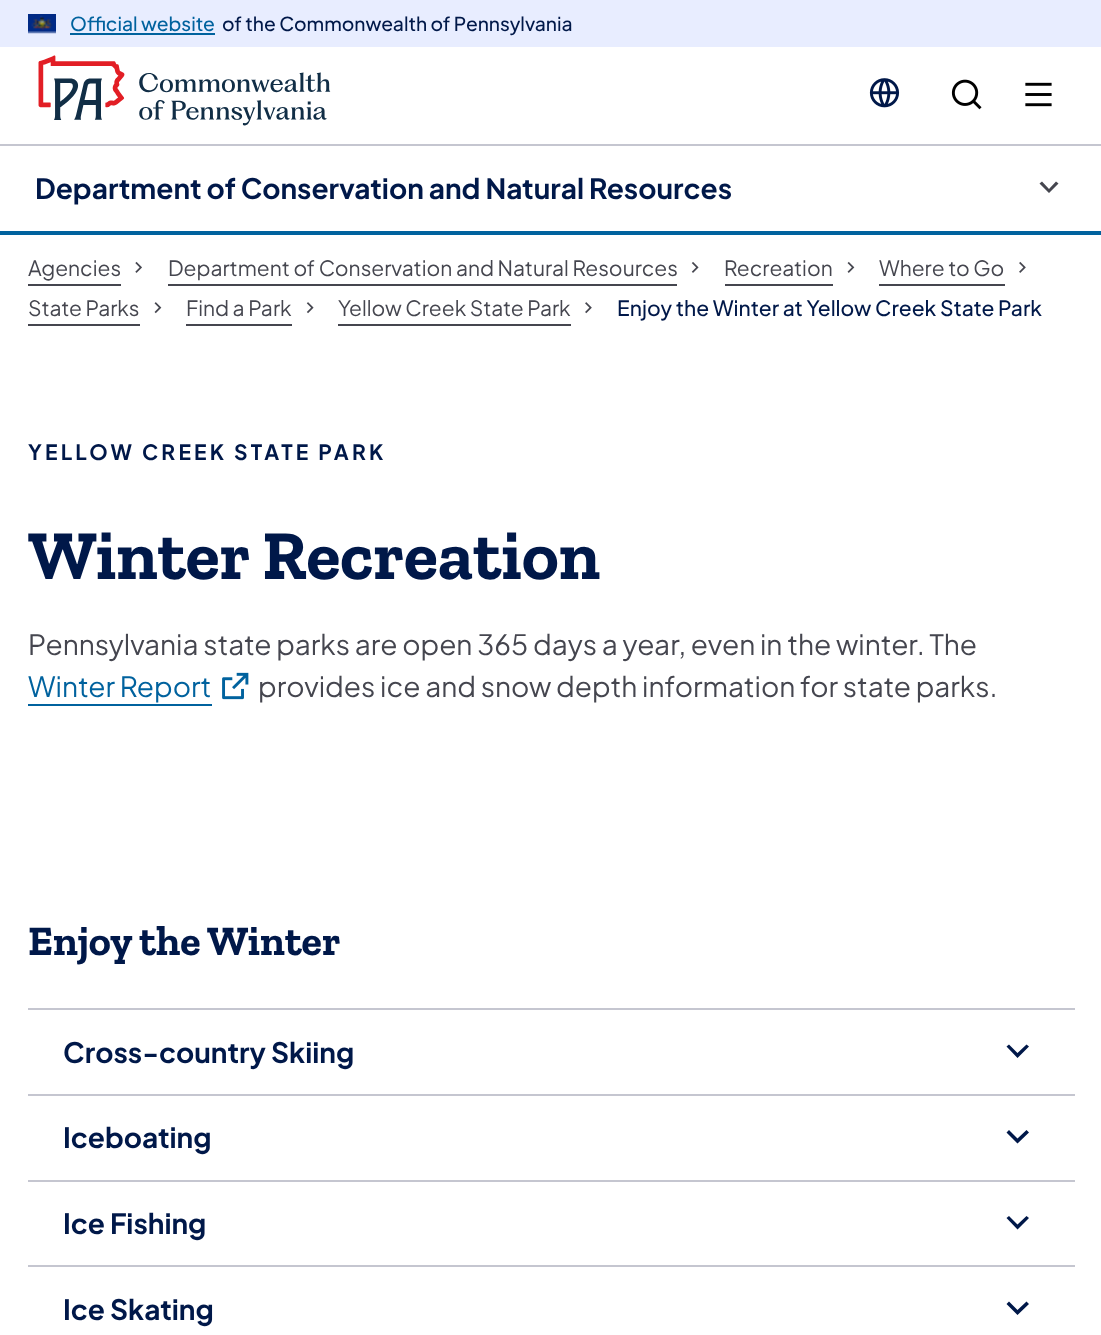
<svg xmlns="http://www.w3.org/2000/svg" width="1101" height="1335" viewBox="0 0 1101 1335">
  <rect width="100%" height="100%" fill="rgb(255,255,255)"/>
  <rect x="0" y="0" width="1101" height="47" fill="rgb(232,237,255)"/>
  <image x="28" y="14" width="28" height="20" href="pic1.png"/>
  <text x="70" y="31" font-family="Plus Jakarta Sans" font-size="19.25" font-weight="500" fill="rgb(0,98,158)">Official website</text>
  <rect x="70" y="33" width="145" height="2" fill="rgb(0,98,158)"/>
  <text x="222" y="31" font-family="Plus Jakarta Sans" font-size="19.25" font-weight="500" fill="rgb(0,24,73)">of the Commonwealth of Pennsylvania</text>
  <rect x="0" y="144" width="1101" height="2" fill="rgb(197,198,208)"/>
  <image x="38" y="55" width="293" height="71" href="pic2.png"/>
  <image x="869" y="78" width="31" height="30" href="pic3.png"/>
  <image x="951" y="79" width="31" height="31" href="pic4.png"/>
  <image x="1025" y="82" width="27" height="25" href="pic5.png"/>
  <rect x="0" y="231" width="1101" height="4" fill="rgb(0,98,158)"/>
  <text x="35" y="199" font-family="Plus Jakarta Sans" font-size="28" font-weight="bold" fill="rgb(0,24,73)">Department of Conservation and Natural Resources</text>
  <path d="M1049 189L1056 181.5L1058.5 183.5L1049 193L1039.5 183.5L1042 181.5Z" fill="rgb(69,70,79)"/>
  <text x="28" y="276" font-family="Plus Jakarta Sans" font-size="21" fill="rgb(69,70,79)">Agencies</text>
  <rect x="28" y="284" width="93" height="2" fill="rgb(69,70,79)"/>
  <image x="135" y="261" width="7" height="12" href="pic6.png"/>
  <text x="168" y="276" font-family="Plus Jakarta Sans" font-size="21" fill="rgb(69,70,79)">Department of Conservation and Natural Resources</text>
  <rect x="168" y="284" width="509" height="2" fill="rgb(69,70,79)"/>
  <image x="691" y="262" width="8" height="11" href="pic7.png"/>
  <text x="724" y="276" font-family="Plus Jakarta Sans" font-size="21" fill="rgb(69,70,79)">Recreation</text>
  <rect x="725" y="284" width="108" height="2" fill="rgb(69,70,79)"/>
  <image x="847" y="261" width="8" height="12" href="pic8.png"/>
  <text x="879" y="276" font-family="Plus Jakarta Sans" font-size="21" fill="rgb(69,70,79)">Where to Go</text>
  <rect x="879" y="284" width="126" height="2" fill="rgb(69,70,79)"/>
  <image x="1019" y="261" width="7" height="12" href="pic9.png"/>
  <text x="28" y="316" font-family="Plus Jakarta Sans" font-size="21" fill="rgb(69,70,79)">State Parks</text>
  <rect x="28" y="324" width="112" height="2" fill="rgb(69,70,79)"/>
  <image x="154" y="302" width="8" height="12" href="pic10.png"/>
  <text x="186" y="316" font-family="Plus Jakarta Sans" font-size="21" fill="rgb(69,70,79)">Find a Park</text>
  <rect x="186" y="324" width="106" height="2" fill="rgb(69,70,79)"/>
  <image x="306" y="302" width="8" height="12" href="pic11.png"/>
  <text x="338" y="316" font-family="Plus Jakarta Sans" font-size="21" fill="rgb(69,70,79)">Yellow Creek State Park</text>
  <rect x="338" y="324" width="233" height="2" fill="rgb(69,70,79)"/>
  <image x="585" y="302" width="7" height="12" href="pic12.png"/>
  <text x="617" y="316" font-family="Plus Jakarta Sans" font-size="21" font-weight="500" fill="rgb(0,24,73)">Enjoy the Winter at Yellow Creek State Park</text>
  <text x="28" y="460" font-family="Plus Jakarta Sans" font-size="21" font-weight="bold" letter-spacing="3.15" fill="rgb(0,24,73)">YELLOW CREEK STATE PARK</text>
  <text x="28" y="579" font-family="Zilla Slab" font-size="70" font-weight="bold" fill="rgb(0,24,73)">Winter Recreation</text>
  <text x="28" y="655" font-family="Plus Jakarta Sans" font-size="28" fill="rgb(69,70,79)">Pennsylvania state parks are open 365 days a year, even in the winter. The</text>
  <text x="28" y="697" font-family="Plus Jakarta Sans" font-size="28" fill="rgb(0,98,158)">Winter Report</text>
  <rect x="28" y="704" width="184" height="2" fill="rgb(0,98,158)"/>
  <image x="222" y="672" width="27" height="28" href="pic13.png"/>
  <text x="258" y="697" font-family="Plus Jakarta Sans" font-size="28" fill="rgb(69,70,79)">provides ice and snow depth information for state parks.</text>
  <text x="28" y="955" font-family="Zilla Slab" font-size="42" font-weight="bold" fill="rgb(0,24,73)">Enjoy the Winter</text>
  <rect x="28" y="1008" width="1047" height="2" fill="rgb(197,198,208)"/>
  <text x="63" y="1063" font-family="Plus Jakarta Sans" font-size="28" font-weight="bold" fill="rgb(0,24,73)">Cross-country Skiing</text>
  <path d="M1017.5 1053L1026.5 1044.5L1029 1046.5L1017.5 1058L1006.5 1046.5L1009 1044.5Z" fill="rgb(0,24,73)"/>
  <rect x="28" y="1094" width="1047" height="2" fill="rgb(197,198,208)"/>
  <text x="63" y="1148" font-family="Plus Jakarta Sans" font-size="28" font-weight="bold" fill="rgb(0,24,73)">Iceboating</text>
  <path d="M1017.5 1138.5L1026.5 1130L1029 1132.5L1017.5 1143.5L1006.5 1132.5L1009 1130Z" fill="rgb(0,24,73)"/>
  <rect x="28" y="1180" width="1047" height="2" fill="rgb(197,198,208)"/>
  <text x="63" y="1234" font-family="Plus Jakarta Sans" font-size="28" font-weight="bold" fill="rgb(0,24,73)">Ice Fishing</text>
  <path d="M1017.5 1224.5L1026.5 1216L1029 1218L1017.5 1229.5L1006.5 1218L1009 1216Z" fill="rgb(0,24,73)"/>
  <rect x="28" y="1265" width="1047" height="2" fill="rgb(197,198,208)"/>
  <text x="63" y="1320" font-family="Plus Jakarta Sans" font-size="28" font-weight="bold" fill="rgb(0,24,73)">Ice Skating</text>
  <path d="M1017.5 1310L1026.5 1301.5L1029 1304L1017.5 1315L1006.5 1304L1009 1301.5Z" fill="rgb(0,24,73)"/>
</svg>
